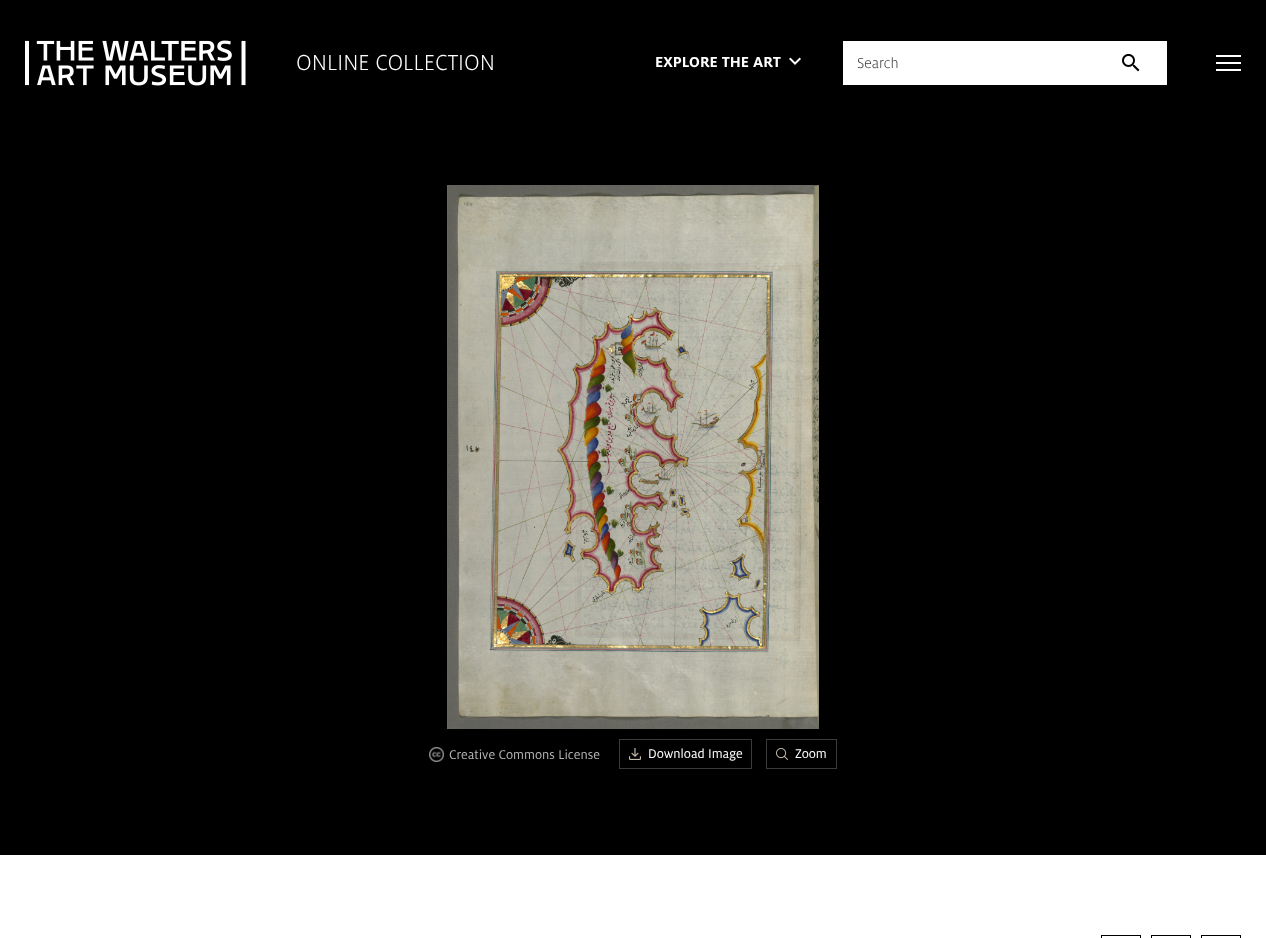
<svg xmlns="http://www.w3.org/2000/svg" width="1266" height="938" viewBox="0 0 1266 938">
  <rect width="100%" height="100%" fill="rgb(255,255,255)"/>
  <rect x="0" y="0" width="1266" height="855" fill="rgb(0,0,0)"/>
  <image x="25" y="40" width="221" height="46" href="pic1.png"/>
  <text x="296" y="70" font-family="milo" font-size="24" font-weight="300" fill="rgb(255,255,255)">ONLINE COLLECTION</text>
  <text x="655" y="67" font-family="milo" font-size="16" font-weight="bold" fill="rgb(255,255,255)">EXPLORE THE ART</text>
  <image x="789" y="57" width="12" height="8" href="pic2.png"/>
  <rect x="843" y="41" width="324" height="44" fill="rgb(255,255,255)"/>
  <text x="857" y="68" font-family="milo" font-size="16" font-weight="300" fill="rgb(66,66,67)">Search</text>
  <image x="1122" y="53" width="18" height="19" href="pic3.png"/>
  <rect x="1216" y="55" width="25" height="2" fill="rgb(255,255,255)"/>
  <rect x="1216" y="62" width="25" height="2" fill="rgb(255,255,255)"/>
  <rect x="1216" y="69" width="25" height="2" fill="rgb(255,255,255)"/>
  <image x="447" y="185" width="372" height="544" href="pic4.png"/>
  <image x="429" y="747" width="15" height="15" href="pic5.png"/>
  <text x="449" y="759" font-family="milo" font-size="14" fill="rgb(179,179,179)">Creative Commons License</text>
  <rect x="619.5" y="739.5" width="132" height="29" fill="none" stroke="rgb(58,58,58)"/>
  <image x="629" y="748" width="12" height="12" href="pic6.png"/>
  <text x="648" y="758" font-family="milo" font-size="14" fill="rgb(255,255,255)">Download Image</text>
  <rect x="766.5" y="739.5" width="70" height="29" fill="none" stroke="rgb(58,58,58)"/>
  <image x="776" y="748" width="12" height="12" href="pic7.png"/>
  <text x="795" y="758" font-family="milo" font-size="14" fill="rgb(255,255,255)">Zoom</text>
  <rect x="1101.5" y="935.5" width="39" height="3" fill="none" stroke="rgb(0,0,0)"/>
  <rect x="1151.5" y="935.5" width="39" height="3" fill="none" stroke="rgb(0,0,0)"/>
  <rect x="1201.5" y="935.5" width="39" height="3" fill="none" stroke="rgb(0,0,0)"/>
</svg>
